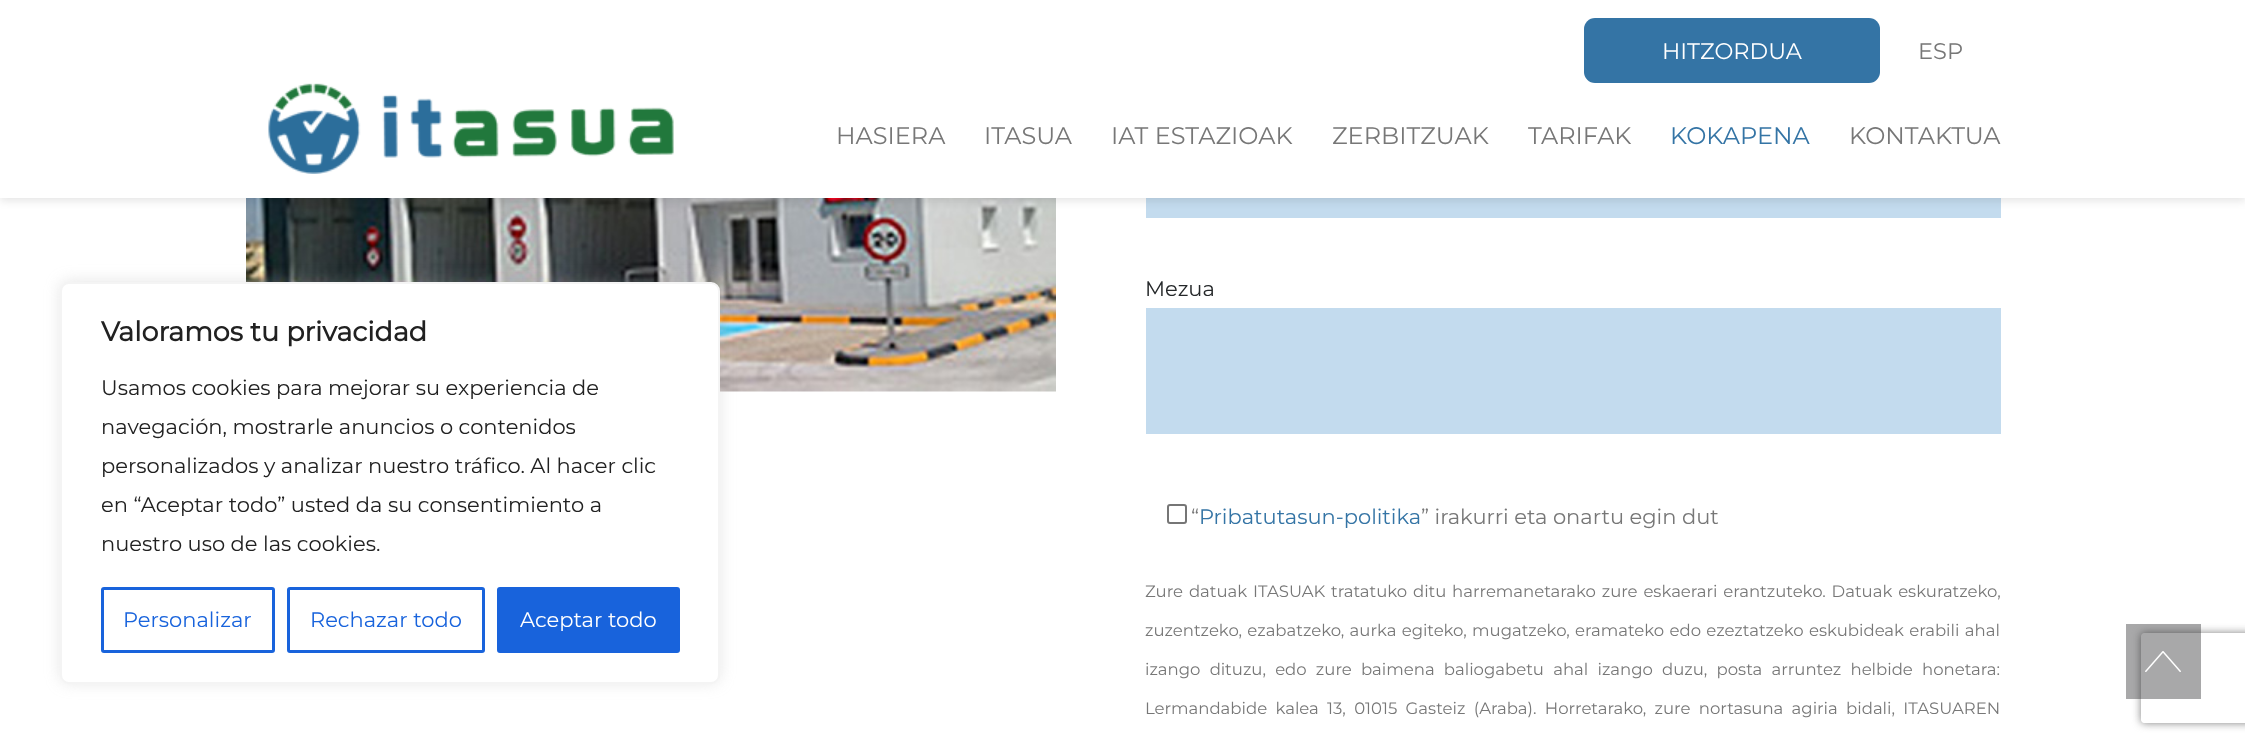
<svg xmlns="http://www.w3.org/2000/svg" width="2245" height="743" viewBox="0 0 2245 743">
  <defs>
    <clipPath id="clip1"><path d="M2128 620H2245V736H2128ZM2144 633H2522C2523.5 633 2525 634.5 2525 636V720C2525 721.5 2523.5 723 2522 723H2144C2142.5 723 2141 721.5 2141 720V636C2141 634.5 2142.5 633 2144 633Z" clip-rule="evenodd"/></clipPath>
  </defs>
  <rect width="100%" height="100%" fill="rgb(255,255,255)"/>
  <image x="246" y="198" width="810" height="194" href="pic2.png"/>
  <rect x="60" y="281" width="660" height="402" rx="9" fill="rgba(172,171,171,0.3)" filter="blur(7.5px)"/>
  <rect x="61" y="283" width="658" height="400" rx="8" fill="rgb(255,255,255)" stroke="rgb(244,244,244)" stroke-width="2"/>
  <text x="101" y="341" font-family="Montserrat" font-size="27" font-weight="bold" fill="rgb(33,33,33)">Valoramos tu privacidad</text>
  <g font-family="Montserrat" font-size="21" font-weight="100" fill="rgb(33,33,33)">
    <text>
      <tspan x="101" y="395">Usamos cookies para mejorar su experiencia de</tspan>
      <tspan x="101" y="434">navegación, mostrarle anuncios o contenidos</tspan>
      <tspan x="101" y="473">personalizados y analizar nuestro tráfico. Al hacer clic</tspan>
      <tspan x="101" y="512">en “Aceptar todo” usted da su consentimiento a</tspan>
      <tspan x="101" y="551">nuestro uso de las cookies.</tspan>
    </text>
  </g>
  <rect x="102.5" y="588.5" width="171" height="63" rx="1.5" fill="none" stroke="rgb(24,99,220)" stroke-width="3"/>
  <text x="123" y="627" font-family="Montserrat" font-size="21" font-weight="100" fill="rgb(24,99,220)">Personalizar</text>
  <rect x="288.5" y="588.5" width="195" height="63" rx="1.5" fill="none" stroke="rgb(24,99,220)" stroke-width="3"/>
  <text x="310" y="627" font-family="Montserrat" font-size="21" font-weight="100" fill="rgb(24,99,220)">Rechazar todo</text>
  <rect x="498.5" y="588.5" width="180" height="63" rx="1.5" fill="rgb(24,99,220)" stroke="rgb(24,99,220)" stroke-width="3"/>
  <text x="520" y="627" font-family="Montserrat" font-size="21" font-weight="100" fill="rgb(255,255,255)">Aceptar todo</text>
  <rect x="1146" y="198" width="855" height="20" fill="rgb(195,219,238)"/>
  <rect x="0" y="3" width="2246" height="198" fill="rgba(0,0,0,0.1)" filter="blur(4px)"/>
  <rect x="0" y="0" width="2245" height="198" fill="rgb(255,255,255)"/>
  <image x="268" y="83" width="406" height="91" href="pic1.png"/>
  <rect x="1584" y="18" width="296" height="65" rx="11" fill="rgb(52,116,165)"/>
  <text x="1662" y="59" font-family="Montserrat" font-size="22.5" font-weight="100" fill="rgb(255,255,255)">HITZORDUA</text>
  <text x="1918" y="59" font-family="Montserrat" font-size="22.5" font-weight="100" fill="rgb(119,119,119)">ESP</text>
  <g font-family="Montserrat" font-size="24" font-weight="100" fill="rgb(119,119,119)">
    <text x="836" y="144">HASIERA</text>
    <text x="984" y="144">ITASUA</text>
    <text x="1111" y="144">IAT ESTAZIOAK</text>
    <text x="1332" y="144">ZERBITZUAK</text>
    <text x="1528" y="144">TARIFAK</text>
  </g>
  <text x="1670" y="144" font-family="Montserrat" font-size="24" font-weight="100" fill="rgb(52,116,165)">KOKAPENA</text>
  <text x="1849" y="144" font-family="Montserrat" font-size="24" font-weight="100" fill="rgb(119,119,119)">KONTAKTUA</text>
  <text x="1145" y="296" font-family="Montserrat" font-size="21" font-weight="100" fill="rgb(37,40,42)">Mezua</text>
  <rect x="1146" y="308" width="855" height="126" fill="rgb(195,219,238)"/>
  <rect x="1168" y="505" width="18" height="18" rx="2" fill="none" stroke="rgb(118,118,118)" stroke-width="2"/>
  <text x="1191" y="524" font-family="Montserrat" font-size="21" font-weight="100" fill="rgb(119,119,119)">“</text>
  <text x="1199" y="524" font-family="Montserrat" font-size="21" font-weight="100" fill="rgb(52,116,165)">Pribatutasun-politika</text>
  <text x="1421" y="524" font-family="Montserrat" font-size="21" font-weight="100" fill="rgb(119,119,119)">” irakurri eta onartu egin dut</text>
  <g font-family="Montserrat" font-size="16.5" font-weight="100" fill="rgb(119,119,119)">
    <text x="1145" y="597" word-spacing="1.5">Zure datuak ITASUAK tratatuko ditu harremanetarako zure eskaerari erantzuteko. Datuak eskuratzeko,</text>
    <text x="1145" y="636" word-spacing="1">zuzentzeko, ezabatzeko, aurka egiteko, mugatzeko, eramateko edo ezeztatzeko eskubideak erabili ahal</text>
    <text x="1145" y="675" word-spacing="4.9">izango dituzu, edo zure baimena baliogabetu ahal izango duzu, posta arruntez helbide honetara:</text>
    <text x="1145" y="714" word-spacing="4">Lermandabide kalea 13, 01015 Gasteiz (Araba). Horretarako, zure nortasuna agiria bidali, ITASUAREN</text>
  </g>
  <g clip-path="url(#clip1)">
    <rect x="2141" y="633" width="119" height="90" rx="3" fill="rgb(128,128,128)" filter="blur(4px)"/>
  </g>
  <rect x="2126" y="624" width="75" height="75" fill="rgba(38,38,40,0.4)"/>
  <image x="2145" y="651" width="36" height="21" href="pic3.png"/>
</svg>
